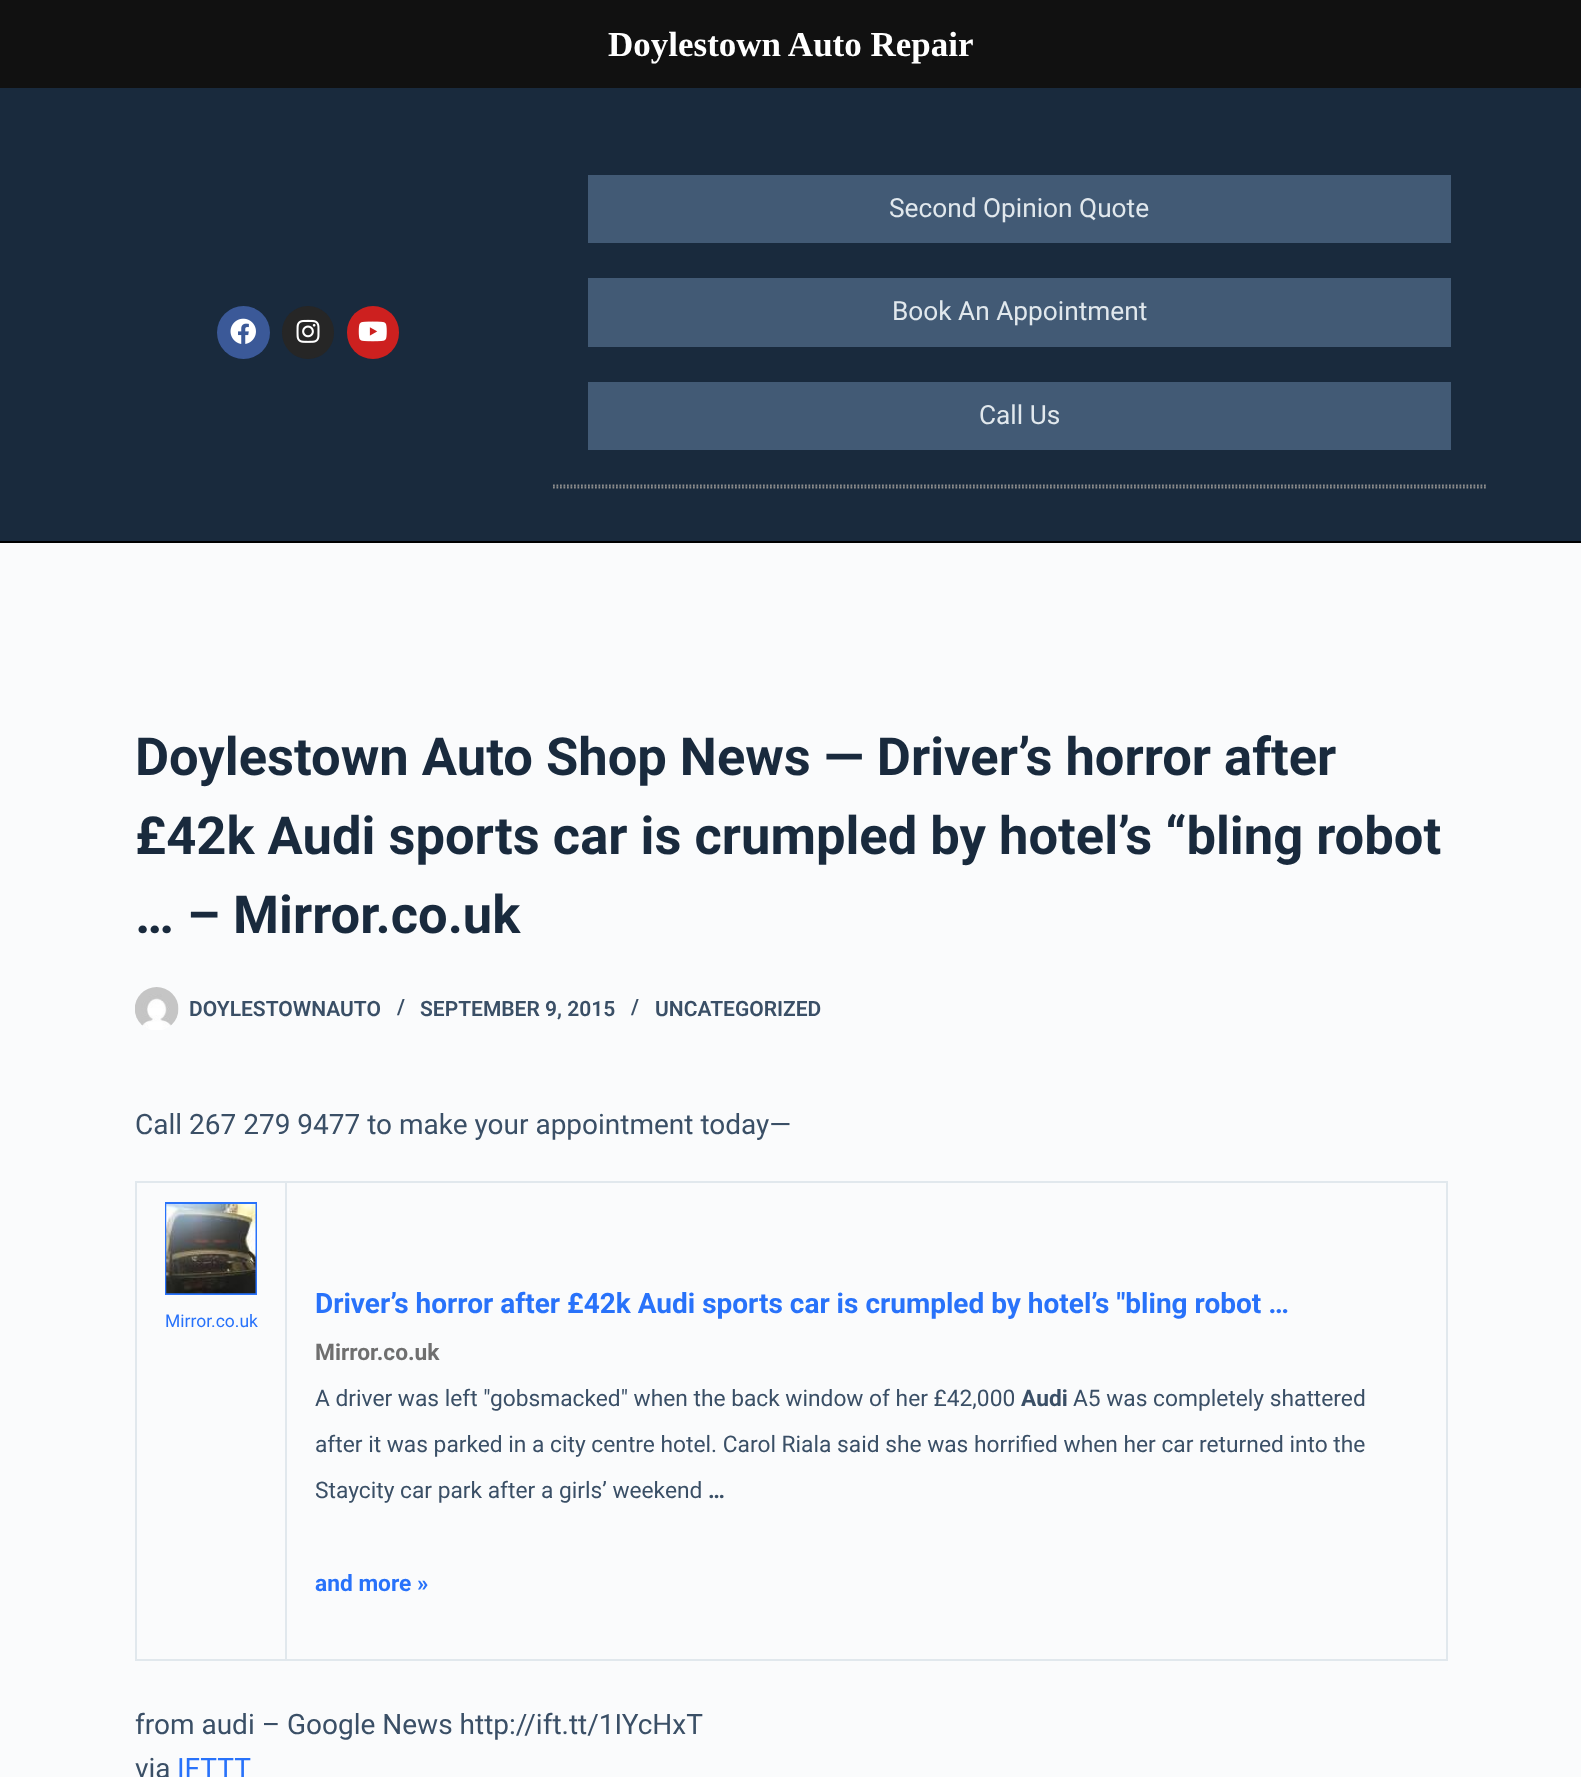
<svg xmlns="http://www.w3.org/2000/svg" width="1581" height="1777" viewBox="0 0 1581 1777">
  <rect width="100%" height="100%" fill="rgb(250,251,252)"/>
  <rect x="0" y="0" width="1581" height="88" fill="rgb(17,17,17)"/>
  <text x="608" y="56" font-family="Liberation Serif" font-size="35" font-weight="bold" fill="rgb(255,255,255)">Doylestown Auto Repair</text>
  <rect x="0" y="88" width="1581" height="453" fill="rgb(25,42,61)"/>
  <rect x="0" y="541" width="1581" height="2" fill="rgb(0,0,0)"/>
  <circle cx="243.5" cy="332.5" r="26.5" fill="rgb(59,89,152)"/>
  <image x="230" y="318" width="26" height="26" href="pic1.png"/>
  <rect x="282" y="306" width="52" height="53" rx="26" fill="rgb(38,38,38)"/>
  <image x="296" y="319" width="24" height="24" href="pic2.png"/>
  <rect x="347" y="306" width="52" height="53" rx="26" fill="rgb(205,32,31)"/>
  <image x="358" y="321" width="29" height="21" href="pic3.png"/>
  <rect x="588" y="175" width="863" height="68" fill="rgb(66,90,117)"/>
  <text x="889" y="217" font-family="Roboto" font-size="26.25" fill="rgb(225,232,237)">Second Opinion Quote</text>
  <rect x="588" y="278" width="863" height="69" fill="rgb(66,90,117)"/>
  <text x="892" y="320" font-family="Roboto" font-size="26.25" fill="rgb(225,232,237)">Book An Appointment</text>
  <rect x="588" y="382" width="863" height="68" fill="rgb(66,90,117)"/>
  <text x="979" y="424" font-family="Roboto" font-size="26.25" fill="rgb(225,232,237)">Call Us</text>
  <path d="M553 485.5H1486" fill="none" stroke="rgb(142,142,142)" stroke-width="1.8" stroke-dasharray="1.75 1.75"/>
  <path d="M553 487.5H1486" fill="none" stroke="rgb(142,142,142)" stroke-width="1.8" stroke-dasharray="1.75 1.75"/>
  <g font-family="Roboto" font-size="52.5" font-weight="bold" fill="rgb(25,42,61)">
    <text>
      <tspan x="135" y="775">Doylestown Auto Shop News — Driver’s horror after</tspan>
      <tspan x="135" y="854">£42k Audi sports car is crumpled by hotel’s “bling robot</tspan>
      <tspan x="135" y="933">… – Mirror.co.uk</tspan>
    </text>
  </g>
  <image x="135" y="987" width="44" height="43" href="pic4.png"/>
  <g font-family="Roboto" font-size="21" font-weight="600" fill="rgb(58,79,102)">
    <text x="189" y="1016">DOYLESTOWNAUTO</text>
    <text x="397" y="1014">/</text>
    <text x="420" y="1016">SEPTEMBER 9, 2015</text>
    <text x="631" y="1014">/</text>
    <text x="655" y="1016">UNCATEGORIZED</text>
  </g>
  <text x="135" y="1134" font-family="Roboto" font-size="28" fill="rgb(58,79,102)">Call 267 279 9477 to make your appointment today—</text>
  <rect x="135" y="1181" width="1312" height="2" fill="rgb(225,232,237)"/>
  <rect x="1446" y="1181" width="2" height="480" fill="rgb(225,232,237)"/>
  <rect x="135" y="1659" width="1312" height="2" fill="rgb(225,232,237)"/>
  <rect x="135" y="1181" width="2" height="480" fill="rgb(225,232,237)"/>
  <rect x="166" y="1203" width="90" height="91" fill="none" stroke="rgb(40,114,250)" stroke-width="2"/>
  <image x="166" y="1204" width="90" height="90" href="pic5.png"/>
  <text x="165" y="1327" font-family="Roboto" font-size="17.5" fill="rgb(40,114,250)">Mirror.co.uk</text>
  <rect x="285" y="1181" width="2" height="480" fill="rgb(225,232,237)"/>
  <text x="315" y="1313" font-family="Roboto" font-size="28" font-weight="bold" fill="rgb(40,114,250)">Driver’s horror after £42k Audi sports car is crumpled by hotel’s "bling robot …</text>
  <text x="315" y="1360" font-family="Roboto" font-size="22.75" font-weight="bold" fill="rgb(111,111,111)">Mirror.co.uk</text>
  <text x="315" y="1406" font-family="Roboto" font-size="22.75" fill="rgb(58,79,102)">A driver was left "gobsmacked" when the back window of her £42,000</text>
  <text x="1021" y="1406" font-family="Roboto" font-size="22.75" font-weight="bold" fill="rgb(58,79,102)">Audi</text>
  <g font-family="Roboto" font-size="22.75" fill="rgb(58,79,102)">
    <text x="1073" y="1406">A5 was completely shattered</text>
    <text x="315" y="1452">after it was parked in a city centre hotel. Carol Riala said she was horrified when her car returned into the</text>
    <text x="315" y="1498">Staycity car park after a girls’ weekend</text>
  </g>
  <text x="708" y="1498" font-family="Roboto" font-size="22.75" font-weight="bold" fill="rgb(58,79,102)">…</text>
  <text x="315" y="1591" font-family="Roboto" font-size="22.75" font-weight="bold" fill="rgb(40,114,250)">and more »</text>
  <g font-family="Roboto" font-size="28" fill="rgb(58,79,102)">
    <text>
      <tspan x="135" y="1734">from audi – Google News http://ift.tt/1IYcHxT</tspan>
      <tspan x="135" y="1778">via</tspan>
    </text>
  </g>
  <text x="177" y="1778" font-family="Roboto" font-size="28" fill="rgb(40,114,250)">IFTTT</text>
</svg>
